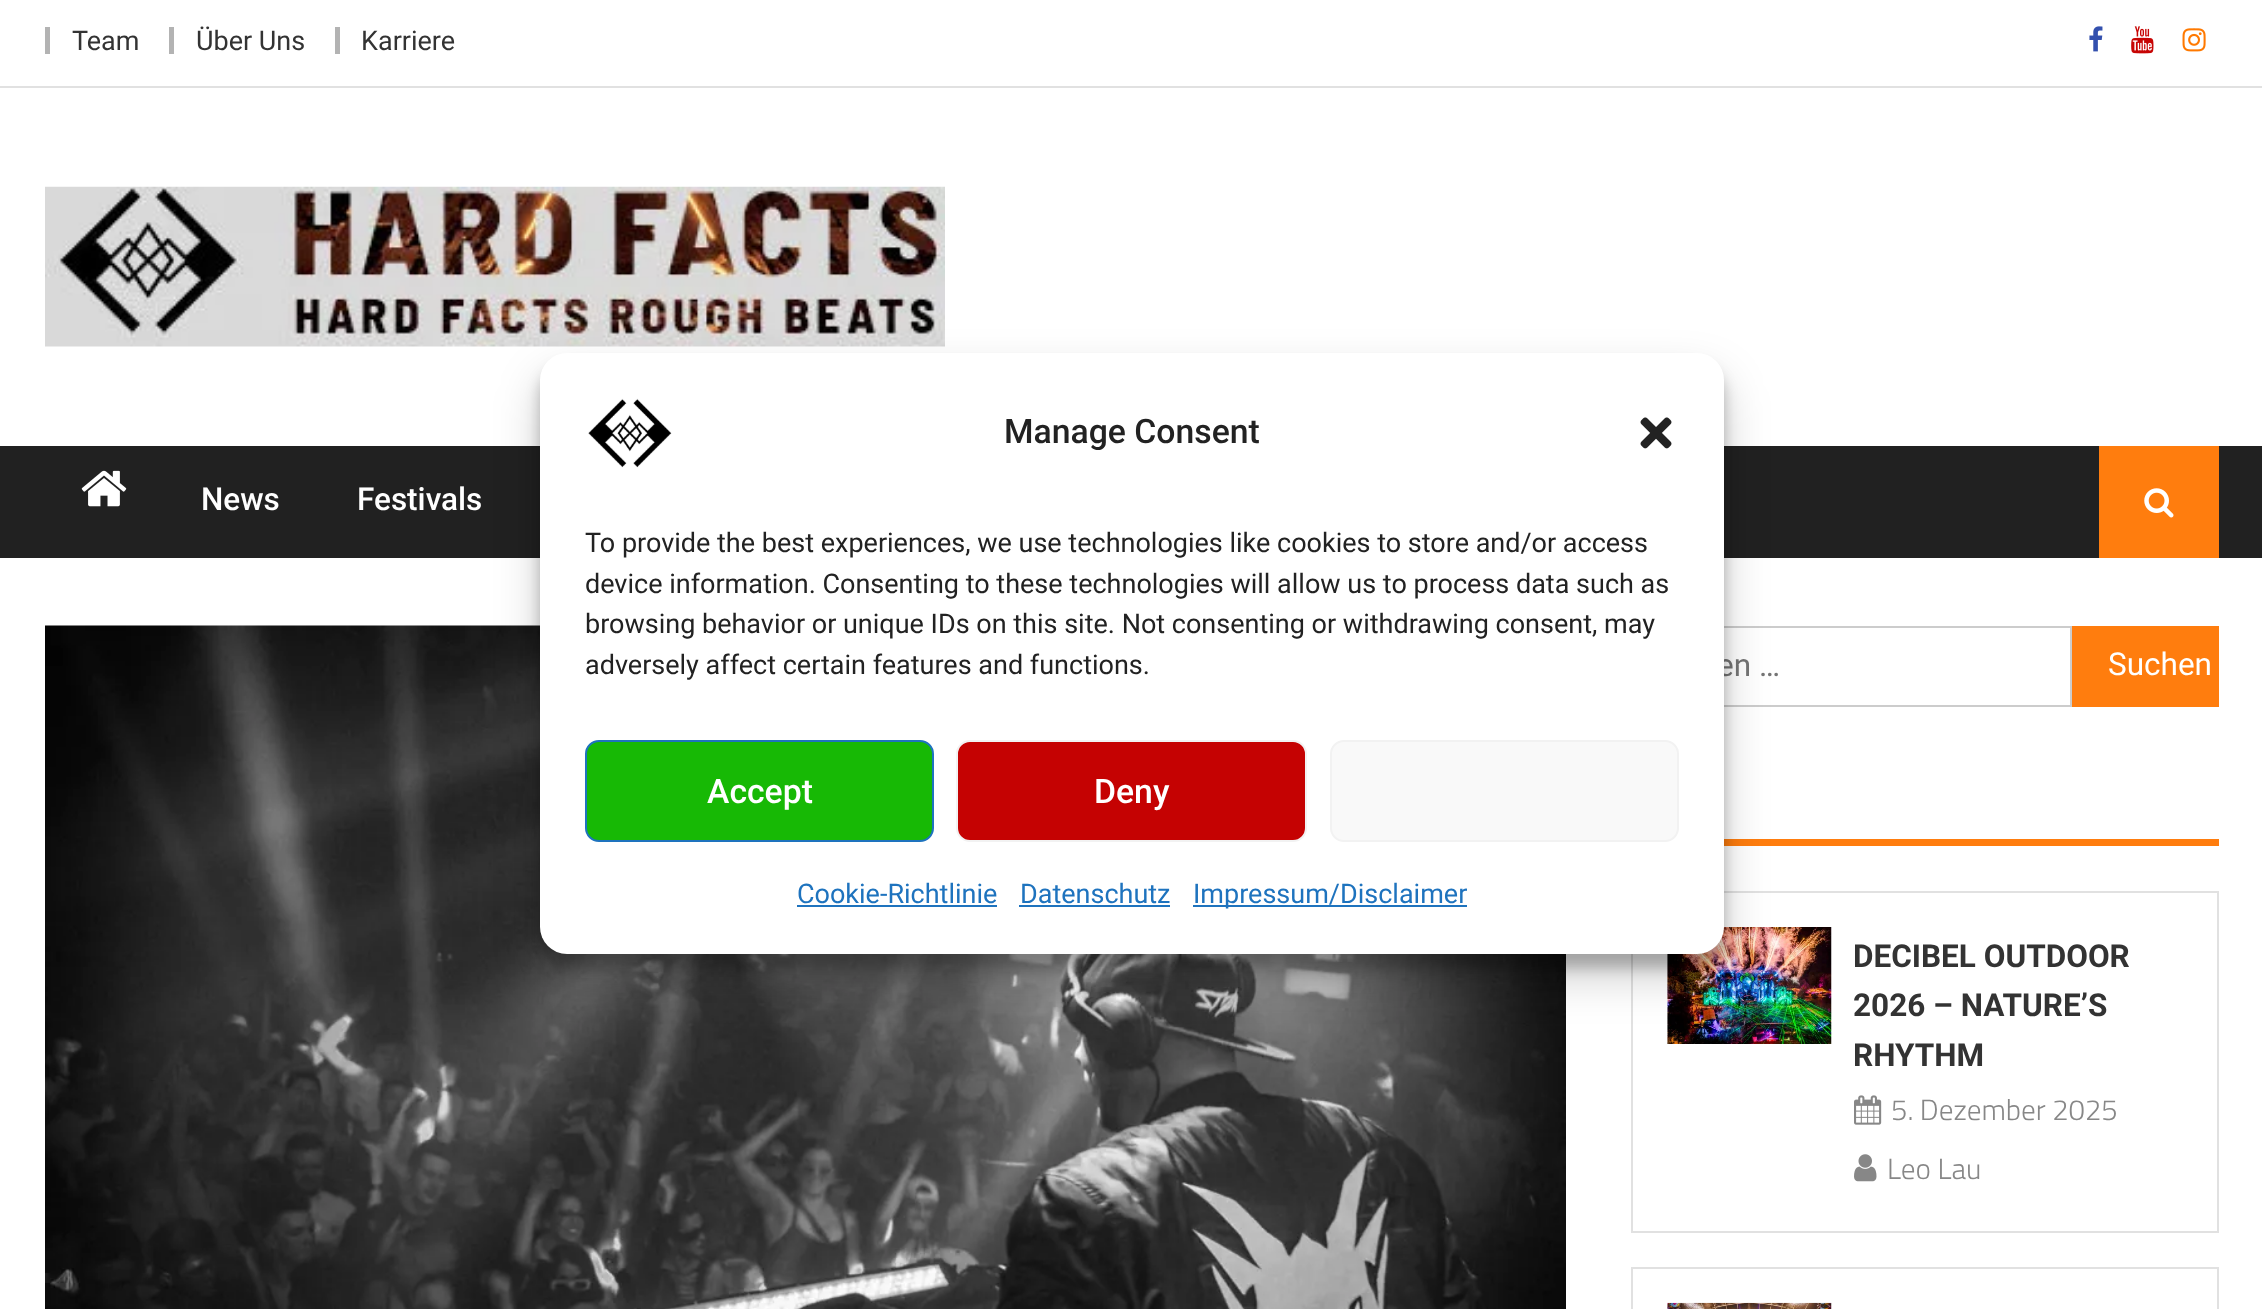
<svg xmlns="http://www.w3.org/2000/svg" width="2262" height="1309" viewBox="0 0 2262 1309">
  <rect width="100%" height="100%" fill="rgb(255,255,255)"/>
  <rect x="0" y="86" width="2262" height="2" fill="rgb(225,225,225)"/>
  <rect x="45" y="27" width="5" height="27" fill="rgb(179,179,179)"/>
  <text x="72" y="50" font-family="Roboto" font-size="27" fill="rgb(51,51,51)">Team</text>
  <rect x="169" y="27" width="5" height="27" fill="rgb(179,179,179)"/>
  <text x="196" y="50" font-family="Roboto" font-size="27" fill="rgb(51,51,51)">Über Uns</text>
  <rect x="335" y="27" width="5" height="27" fill="rgb(179,179,179)"/>
  <text x="361" y="50" font-family="Roboto" font-size="27" fill="rgb(51,51,51)">Karriere</text>
  <image x="2089" y="26" width="14" height="26" href="pic1.png"/>
  <image x="2131" y="26" width="23" height="28" href="pic2.png"/>
  <image x="2182" y="28" width="24" height="24" href="pic3.png"/>
  <image x="45" y="186" width="900" height="161" href="pic4.png"/>
  <rect x="0" y="446" width="2262" height="112" fill="rgb(33,33,33)"/>
  <image x="81" y="470" width="46" height="37" href="pic5.png"/>
  <g font-family="Roboto" font-size="31.5" font-weight="500" fill="rgb(255,255,255)">
    <text x="201" y="510">News</text>
    <text x="357" y="510">Festivals</text>
  </g>
  <rect x="2099" y="446" width="120" height="112" fill="rgb(255,125,14)"/>
  <image x="2144" y="488" width="30" height="30" href="pic6.png"/>
  <image x="45" y="625" width="1521" height="684" href="pic7.png"/>
  <rect x="1632" y="627" width="439" height="79" fill="none" stroke="rgb(204,204,204)" stroke-width="2"/>
  <text x="1717" y="676" font-family="Roboto" font-size="31.5" fill="rgb(117,117,117)">en …</text>
  <rect x="2072" y="626" width="147" height="81" fill="rgb(255,125,14)"/>
  <text x="2108" y="675" font-family="Roboto" font-size="31.5" fill="rgb(255,255,255)">Suchen</text>
  <rect x="1724" y="839" width="495" height="7" fill="rgb(255,125,14)"/>
  <rect x="1632" y="892" width="586" height="340" fill="none" stroke="rgb(225,225,225)" stroke-width="2"/>
  <image x="1667" y="927" width="165" height="117" href="pic8.png"/>
  <g font-family="Roboto" font-size="31.5" font-weight="bold" fill="rgb(51,51,51)">
    <text>
      <tspan x="1853" y="967">DECIBEL OUTDOOR</tspan>
      <tspan x="1853" y="1016">2026 – NATURE’S</tspan>
      <tspan x="1853" y="1066">RHYTHM</tspan>
    </text>
  </g>
  <image x="1854" y="1095" width="28" height="30" href="pic9.png"/>
  <text x="1891" y="1120" font-family="Titillium Web" font-size="29.25" font-weight="300" fill="rgb(135,135,135)">5. Dezember 2025</text>
  <image x="1854" y="1154" width="23" height="28" href="pic10.png"/>
  <text x="1887" y="1179" font-family="Titillium Web" font-size="29.25" font-weight="300" fill="rgb(135,135,135)">Leo Lau</text>
  <rect x="1632" y="1268" width="586" height="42" fill="none" stroke="rgb(225,225,225)" stroke-width="2"/>
  <image x="1667" y="1302" width="165" height="7" href="pic11.png"/>
  <rect x="540" y="367" width="1184" height="601" rx="27" fill="rgba(0,0,0,0.23)" filter="blur(7px)"/>
  <rect x="540" y="376" width="1184" height="601" rx="27" fill="rgba(0,0,0,0.19)" filter="blur(22.5px)"/>
  <rect x="540" y="353" width="1184" height="601" rx="27" fill="rgb(255,255,255)"/>
  <image x="588" y="398" width="84" height="70" href="pic12.png"/>
  <text x="1004" y="443" font-family="Roboto" font-size="33.75" font-weight="500" fill="rgb(34,34,34)">Manage Consent</text>
  <image x="1640" y="417" width="32" height="32" href="pic13.png"/>
  <g font-family="Roboto" font-size="27" fill="rgb(34,34,34)">
    <text>
      <tspan x="585" y="552">To provide the best experiences, we use technologies like cookies to store and/or access</tspan>
      <tspan x="585" y="593">device information. Consenting to these technologies will allow us to process data such as</tspan>
      <tspan x="585" y="633">browsing behavior or unique IDs on this site. Not consenting or withdrawing consent, may</tspan>
      <tspan x="585" y="674">adversely affect certain features and functions.</tspan>
    </text>
  </g>
  <rect x="586" y="741" width="347" height="100" rx="13" fill="rgb(23,185,5)" stroke="rgb(30,115,190)" stroke-width="2"/>
  <text x="707" y="803" font-family="Roboto" font-size="33.75" font-weight="500" fill="rgb(255,255,255)">Accept</text>
  <rect x="957" y="741" width="349" height="100" rx="13" fill="rgb(197,2,2)" stroke="rgb(242,242,242)" stroke-width="2"/>
  <text x="1094" y="803" font-family="Roboto" font-size="33.75" font-weight="500" fill="rgb(255,255,255)">Deny</text>
  <rect x="1331" y="741" width="347" height="100" rx="13" fill="rgb(249,249,249)" stroke="rgb(242,242,242)" stroke-width="2"/>
  <text x="797" y="903" font-family="Roboto" font-size="27" fill="rgb(30,115,190)">Cookie-Richtlinie</text>
  <rect x="797" y="905" width="200" height="2" fill="rgb(30,115,190)"/>
  <text x="1020" y="903" font-family="Roboto" font-size="27" fill="rgb(30,115,190)">Datenschutz</text>
  <rect x="1019" y="905" width="151" height="2" fill="rgb(30,115,190)"/>
  <rect x="1193" y="905" width="274" height="2" fill="rgb(30,115,190)"/>
  <text x="1193" y="903" font-family="Roboto" font-size="27" fill="rgb(30,115,190)">Impressum/Disclaimer</text>
</svg>
